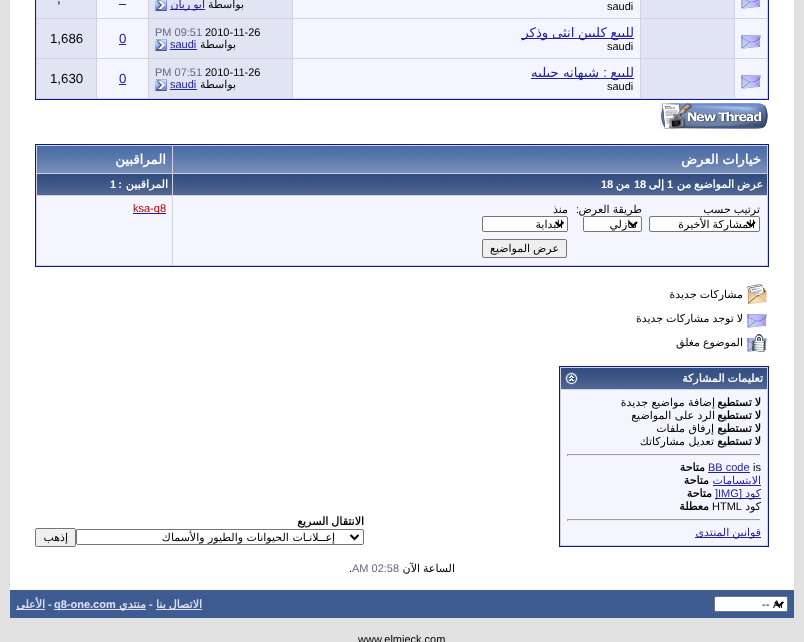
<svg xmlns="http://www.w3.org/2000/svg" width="804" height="642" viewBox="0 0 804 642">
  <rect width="100%" height="100%" fill="rgb(225,225,226)"/>
  <rect x="10" y="0" width="784" height="590" fill="rgb(255,255,255)"/>
  <rect x="35.5" y="-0.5" width="733" height="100" fill="rgb(209,209,225)" stroke="rgb(11,25,140)"/>
  <rect x="735" y="0" width="32" height="18" fill="rgb(245,245,255)"/>
  <image x="741" y="0" width="19" height="9" href="pic1.png"/>
  <rect x="641" y="0" width="93" height="18" fill="rgb(225,228,242)"/>
  <rect x="293" y="0" width="347" height="18" fill="rgb(245,245,255)"/>
  <text x="607" y="10" font-family="Liberation Sans" font-size="11" fill="rgb(0,0,0)">saudi</text>
  <rect x="149" y="0" width="143" height="18" fill="rgb(225,228,242)"/>
  <text x="244" y="8" font-family="DejaVu Sans" font-size="11" direction="rtl" fill="rgb(0,0,0)">بواسطة</text>
  <rect x="170" y="9" width="35" height="1" fill="rgb(34,34,156)"/>
  <text x="205" y="8" word-spacing="-0.5" font-family="DejaVu Sans" font-size="11" direction="rtl" fill="rgb(34,34,156)">ابو ريان</text>
  <image x="155" y="0" width="12" height="11" href="pic2.png"/>
  <rect x="97" y="0" width="51" height="18" fill="rgb(245,245,255)"/>
  <rect x="119" y="4" width="7" height="1" fill="rgb(34,34,156)"/>
  <rect x="37" y="0" width="59" height="18" fill="rgb(225,228,242)"/>
  <text x="57" y="3" font-family="Liberation Sans" font-size="13.25" fill="rgb(0,0,0)">,</text>
  <rect x="735" y="19" width="32" height="39" fill="rgb(245,245,255)"/>
  <image x="741" y="35" width="20" height="14" href="pic3.png"/>
  <rect x="641" y="19" width="93" height="39" fill="rgb(225,228,242)"/>
  <rect x="293" y="19" width="347" height="39" fill="rgb(245,245,255)"/>
  <rect x="521" y="38" width="113" height="1" fill="rgb(34,34,156)"/>
  <text x="634" y="37" word-spacing="-0.5" font-family="DejaVu Sans" font-size="13.25" direction="rtl" fill="rgb(34,34,156)">للبيع كلبين انثى وذكر</text>
  <text x="607" y="50" font-family="Liberation Sans" font-size="11" fill="rgb(0,0,0)">saudi</text>
  <rect x="149" y="19" width="143" height="39" fill="rgb(225,228,242)"/>
  <text x="205" y="36" font-family="Liberation Sans" font-size="11" fill="rgb(0,0,0)">2010-11-26</text>
  <text x="155" y="36" font-family="Liberation Sans" font-size="11" fill="rgb(102,102,134)">PM 09:51</text>
  <text x="236" y="48" font-family="DejaVu Sans" font-size="11" direction="rtl" fill="rgb(0,0,0)">بواسطة</text>
  <text x="170" y="48" font-family="Liberation Sans" font-size="11" fill="rgb(34,34,156)">saudi</text>
  <rect x="170" y="49" width="27" height="1" fill="rgb(34,34,156)"/>
  <image x="155" y="39" width="12" height="12" href="pic4.png"/>
  <rect x="97" y="19" width="51" height="39" fill="rgb(245,245,255)"/>
  <text x="119" y="43" font-family="Liberation Sans" font-size="13.25" fill="rgb(34,34,156)">0</text>
  <rect x="119" y="44" width="7" height="1" fill="rgb(34,34,156)"/>
  <rect x="37" y="19" width="59" height="39" fill="rgb(225,228,242)"/>
  <text x="50" y="43" font-family="Liberation Sans" font-size="13.25" fill="rgb(0,0,0)">1,686</text>
  <rect x="735" y="59" width="32" height="39" fill="rgb(245,245,255)"/>
  <image x="741" y="75" width="20" height="14" href="pic3.png"/>
  <rect x="641" y="59" width="93" height="39" fill="rgb(225,228,242)"/>
  <rect x="293" y="59" width="347" height="39" fill="rgb(245,245,255)"/>
  <rect x="531" y="78" width="103" height="1" fill="rgb(34,34,156)"/>
  <text x="634" y="77" font-family="DejaVu Sans" font-size="13.25" direction="rtl" fill="rgb(34,34,156)">للبيع</text>
  <text x="607" y="77" font-family="Liberation Sans" font-size="13.25" direction="rtl" fill="rgb(34,34,156)">:</text>
  <text x="599" y="77" font-family="DejaVu Sans" font-size="13.25" direction="rtl" fill="rgb(34,34,156)">شيهانه جبليه</text>
  <text x="607" y="90" font-family="Liberation Sans" font-size="11" fill="rgb(0,0,0)">saudi</text>
  <rect x="149" y="59" width="143" height="39" fill="rgb(225,228,242)"/>
  <text x="205" y="76" font-family="Liberation Sans" font-size="11" fill="rgb(0,0,0)">2010-11-26</text>
  <text x="155" y="76" font-family="Liberation Sans" font-size="11" fill="rgb(102,102,134)">PM 07:51</text>
  <text x="236" y="88" font-family="DejaVu Sans" font-size="11" direction="rtl" fill="rgb(0,0,0)">بواسطة</text>
  <text x="170" y="88" font-family="Liberation Sans" font-size="11" fill="rgb(34,34,156)">saudi</text>
  <rect x="170" y="89" width="27" height="1" fill="rgb(34,34,156)"/>
  <image x="155" y="79" width="12" height="12" href="pic4.png"/>
  <rect x="97" y="59" width="51" height="39" fill="rgb(245,245,255)"/>
  <text x="119" y="83" font-family="Liberation Sans" font-size="13.25" fill="rgb(34,34,156)">0</text>
  <rect x="119" y="84" width="7" height="1" fill="rgb(34,34,156)"/>
  <rect x="37" y="59" width="59" height="39" fill="rgb(225,228,242)"/>
  <text x="50" y="83" font-family="Liberation Sans" font-size="13.25" fill="rgb(0,0,0)">1,630</text>
  <image x="660" y="103" width="108" height="26" href="pic5.png"/>
  <rect x="35.5" y="144.5" width="733" height="122" fill="rgb(209,209,225)" stroke="rgb(11,25,140)"/>
  <image x="173" y="146" width="594" height="27" href="pic6.png"/>
  <text x="761" y="164" word-spacing="-0.5" font-family="DejaVu Sans" font-size="13.25" font-weight="bold" direction="rtl" fill="rgb(255,255,255)">خيارات العرض</text>
  <image x="37" y="146" width="135" height="27" href="pic7.png"/>
  <text x="166" y="164" font-family="DejaVu Sans" font-size="13.25" font-weight="bold" direction="rtl" fill="rgb(255,255,255)">المراقبين</text>
  <image x="173" y="174" width="594" height="21" href="pic8.png"/>
  <text x="763" y="188" word-spacing="-0.5" font-family="DejaVu Sans" font-size="11" font-weight="bold" direction="rtl" fill="rgb(255,255,255)">عرض المواضيع من</text>
  <text x="667" y="188" font-family="Liberation Sans" font-size="11" font-weight="bold" fill="rgb(255,255,255)">1</text>
  <text x="664" y="188" font-family="DejaVu Sans" font-size="11" font-weight="bold" direction="rtl" fill="rgb(255,255,255)">إلى</text>
  <text x="634" y="188" font-family="Liberation Sans" font-size="11" font-weight="bold" fill="rgb(255,255,255)">18</text>
  <text x="630" y="188" font-family="DejaVu Sans" font-size="11" font-weight="bold" direction="rtl" fill="rgb(255,255,255)">من</text>
  <text x="601" y="188" font-family="Liberation Sans" font-size="11" font-weight="bold" fill="rgb(255,255,255)">18</text>
  <image x="37" y="174" width="135" height="21" href="pic9.png"/>
  <text x="168" y="188" font-family="DejaVu Sans" font-size="11" font-weight="bold" direction="rtl" fill="rgb(255,255,255)">المراقبين</text>
  <text x="122" y="188" font-family="Liberation Sans" font-size="11" font-weight="bold" direction="rtl" fill="rgb(255,255,255)">:</text>
  <text x="110" y="188" font-family="Liberation Sans" font-size="11" font-weight="bold" fill="rgb(255,255,255)">1</text>
  <rect x="173" y="196" width="594" height="69" fill="rgb(245,245,255)"/>
  <text x="760" y="213" word-spacing="-0.5" font-family="DejaVu Sans" font-size="11" direction="rtl" fill="rgb(0,0,0)">ترتيب حسب</text>
  <rect x="649.5" y="216.5" width="110" height="15" rx="1.5" fill="rgb(255,255,255)" stroke="rgb(118,118,118)"/>
  <path d="M747 222L751 226L755 222" fill="none" stroke="rgb(0,0,0)" stroke-width="2"/>
  <g font-family="DejaVu Sans" font-size="11" direction="rtl" fill="rgb(0,0,0)">
    <text x="755" y="228" word-spacing="-0.5">المشاركة الأخيرة</text>
    <text x="642" y="213" word-spacing="-0.5">طريقة العرض</text>
  </g>
  <text x="579" y="213" font-family="Liberation Sans" font-size="11" direction="rtl" fill="rgb(0,0,0)">:</text>
  <rect x="583.5" y="216.5" width="58" height="15" rx="1.5" fill="rgb(255,255,255)" stroke="rgb(118,118,118)"/>
  <path d="M629 222L633 226L637 222" fill="none" stroke="rgb(0,0,0)" stroke-width="2"/>
  <g font-family="DejaVu Sans" font-size="11" direction="rtl" fill="rgb(0,0,0)">
    <text x="637" y="228">تنازلي</text>
    <text x="568" y="213">منذ</text>
  </g>
  <rect x="482.5" y="216.5" width="85" height="15" rx="1.5" fill="rgb(255,255,255)" stroke="rgb(118,118,118)"/>
  <path d="M555.5 222L559.5 226L563.5 222" fill="none" stroke="rgb(0,0,0)" stroke-width="2"/>
  <text x="563" y="228" font-family="DejaVu Sans" font-size="11" direction="rtl" fill="rgb(0,0,0)">البداية</text>
  <rect x="482.5" y="239.5" width="84" height="18" rx="1.5" fill="rgb(239,239,239)" stroke="rgb(118,118,118)"/>
  <text x="559" y="252" word-spacing="-0.5" font-family="DejaVu Sans" font-size="11" direction="rtl" fill="rgb(0,0,0)">عرض المواضيع</text>
  <rect x="37" y="196" width="135" height="69" fill="rgb(245,245,255)"/>
  <rect x="133" y="213" width="33" height="1" fill="rgb(34,34,156)"/>
  <text x="133" y="212" font-family="Liberation Sans" font-size="11" fill="rgb(191,0,0)">ksa-q8</text>
  <image x="747" y="284" width="20" height="20" href="pic10.png"/>
  <text x="743" y="298" word-spacing="-0.5" font-family="DejaVu Sans" font-size="11" direction="rtl" fill="rgb(0,0,0)">مشاركات جديدة</text>
  <image x="747" y="314" width="20" height="14" href="pic11.png"/>
  <text x="743" y="322" word-spacing="-0.5" font-family="DejaVu Sans" font-size="11" direction="rtl" fill="rgb(0,0,0)">لا توجد مشاركات جديدة</text>
  <image x="747" y="334" width="20" height="18" href="pic12.png"/>
  <text x="743" y="346" word-spacing="-0.5" font-family="DejaVu Sans" font-size="11" direction="rtl" fill="rgb(0,0,0)">الموضوع مغلق</text>
  <rect x="559.5" y="366.5" width="209" height="180" fill="rgb(209,209,225)" stroke="rgb(11,25,140)"/>
  <image x="561" y="368" width="206" height="21" href="pic13.png"/>
  <text x="763" y="382" word-spacing="-0.5" font-family="DejaVu Sans" font-size="11" font-weight="bold" direction="rtl" fill="rgb(255,255,255)">تعليمات المشاركة</text>
  <image x="565" y="372" width="13" height="13" href="pic14.png"/>
  <rect x="561" y="390" width="206" height="155" fill="rgb(245,245,255)"/>
  <text x="761" y="406" word-spacing="-0.5" font-family="DejaVu Sans" font-size="11" font-weight="bold" direction="rtl" fill="rgb(0,0,0)">لا تستطيع</text>
  <text x="715" y="406" font-family="DejaVu Sans" font-size="11" direction="rtl" fill="rgb(0,0,0)">إضافة مواضيع جديدة</text>
  <text x="761" y="419" word-spacing="-0.5" font-family="DejaVu Sans" font-size="11" font-weight="bold" direction="rtl" fill="rgb(0,0,0)">لا تستطيع</text>
  <text x="715" y="419" font-family="DejaVu Sans" font-size="11" direction="rtl" fill="rgb(0,0,0)">الرد على المواضيع</text>
  <text x="761" y="432" word-spacing="-0.5" font-family="DejaVu Sans" font-size="11" font-weight="bold" direction="rtl" fill="rgb(0,0,0)">لا تستطيع</text>
  <text x="714" y="432" font-family="DejaVu Sans" font-size="11" direction="rtl" fill="rgb(0,0,0)">إرفاق ملفات</text>
  <text x="761" y="445" word-spacing="-0.5" font-family="DejaVu Sans" font-size="11" font-weight="bold" direction="rtl" fill="rgb(0,0,0)">لا تستطيع</text>
  <text x="714" y="445" font-family="DejaVu Sans" font-size="11" direction="rtl" fill="rgb(0,0,0)">تعديل مشاركاتك</text>
  <rect x="567" y="454" width="194" height="1" fill="rgb(159,159,159)"/>
  <rect x="760" y="454" width="1" height="2" fill="rgb(238,238,238)"/>
  <rect x="567" y="455" width="194" height="1" fill="rgb(238,238,238)"/>
  <rect x="567" y="454" width="1" height="2" fill="rgb(159,159,159)"/>
  <text x="753" y="471" font-family="Liberation Sans" font-size="11" fill="rgb(0,0,0)">is</text>
  <text x="708" y="471" font-family="Liberation Sans" font-size="11" fill="rgb(34,34,156)">BB code</text>
  <rect x="708" y="472" width="42" height="1" fill="rgb(34,34,156)"/>
  <text x="705" y="471" font-family="DejaVu Sans" font-size="11" font-weight="bold" direction="rtl" fill="rgb(0,0,0)">متاحة</text>
  <rect x="713" y="485" width="48" height="1" fill="rgb(34,34,156)"/>
  <text x="761" y="484" font-family="DejaVu Sans" font-size="11" direction="rtl" fill="rgb(34,34,156)">الابتسامات</text>
  <text x="709" y="484" font-family="DejaVu Sans" font-size="11" font-weight="bold" direction="rtl" fill="rgb(0,0,0)">متاحة</text>
  <rect x="715" y="498" width="46" height="1" fill="rgb(34,34,156)"/>
  <text x="761" y="497" font-family="DejaVu Sans" font-size="11" direction="rtl" fill="rgb(34,34,156)">كود</text>
  <text x="742" y="497" font-family="Liberation Sans" font-size="11" direction="rtl" fill="rgb(34,34,156)">[</text>
  <text x="715" y="497" font-family="Liberation Sans" font-size="11" fill="rgb(34,34,156)">]IMG</text>
  <text x="712" y="497" font-family="DejaVu Sans" font-size="11" font-weight="bold" direction="rtl" fill="rgb(0,0,0)">متاحة</text>
  <text x="761" y="510" font-family="DejaVu Sans" font-size="11" direction="rtl" fill="rgb(0,0,0)">كود</text>
  <text x="712" y="510" font-family="Liberation Sans" font-size="11" fill="rgb(0,0,0)">HTML</text>
  <text x="709" y="510" font-family="DejaVu Sans" font-size="11" font-weight="bold" direction="rtl" fill="rgb(0,0,0)">معطلة</text>
  <rect x="567" y="519" width="194" height="1" fill="rgb(159,159,159)"/>
  <rect x="760" y="519" width="1" height="2" fill="rgb(238,238,238)"/>
  <rect x="567" y="520" width="194" height="1" fill="rgb(238,238,238)"/>
  <rect x="567" y="519" width="1" height="2" fill="rgb(159,159,159)"/>
  <rect x="695" y="537" width="66" height="1" fill="rgb(34,34,156)"/>
  <text x="761" y="536" word-spacing="-0.5" font-family="DejaVu Sans" font-size="11" direction="rtl" fill="rgb(34,34,156)">قوانين المنتدى</text>
  <text x="364" y="525" word-spacing="-0.5" font-family="DejaVu Sans" font-size="11" font-weight="bold" direction="rtl" fill="rgb(0,0,0)">الانتقال السريع</text>
  <rect x="76.5" y="529.5" width="287" height="15" rx="1.5" fill="none" stroke="rgb(118,118,118)"/>
  <path d="M350.5 535L354.5 539L358.5 535" fill="none" stroke="rgb(0,0,0)" stroke-width="2"/>
  <text x="335" y="541" font-family="DejaVu Sans" font-size="11" direction="rtl" fill="rgb(0,0,0)">إعــلانـات الحيوانات والطيور والأسماك</text>
  <rect x="35.5" y="528.5" width="40" height="18" rx="1.5" fill="rgb(239,239,239)" stroke="rgb(118,118,118)"/>
  <g font-family="DejaVu Sans" font-size="11" direction="rtl" fill="rgb(0,0,0)">
    <text x="68" y="541">إذهب</text>
    <text x="455" y="572" word-spacing="-0.5">الساعة الآن</text>
  </g>
  <text x="352" y="572" font-family="Liberation Sans" font-size="11" fill="rgb(102,102,134)">AM 02:58</text>
  <text x="349" y="572" font-family="Liberation Sans" font-size="11" fill="rgb(0,0,0)">.</text>
  <rect x="10" y="590" width="784" height="28" fill="rgb(62,92,146)"/>
  <rect x="714.5" y="596.5" width="73" height="15" rx="1.5" fill="rgb(255,255,255)" stroke="rgb(118,118,118)"/>
  <path d="M775 602L779 606L783 602" fill="none" stroke="rgb(0,0,0)" stroke-width="2"/>
  <g font-family="Liberation Sans" font-size="11" fill="rgb(0,0,0)">
    <text x="773" y="608">Ar</text>
    <text x="762" y="608">--</text>
  </g>
  <rect x="156" y="609" width="46" height="1" fill="rgb(224,224,246)"/>
  <text x="202" y="608" word-spacing="-0.5" font-family="DejaVu Sans" font-size="11" font-weight="bold" direction="rtl" fill="rgb(224,224,246)">الاتصال بنا</text>
  <text x="149" y="608" font-family="Liberation Sans" font-size="11" font-weight="bold" fill="rgb(224,224,246)">-</text>
  <rect x="54" y="609" width="92" height="1" fill="rgb(224,224,246)"/>
  <text x="146" y="608" font-family="DejaVu Sans" font-size="11" font-weight="bold" direction="rtl" fill="rgb(224,224,246)">منتدي</text>
  <g font-family="Liberation Sans" font-size="11" font-weight="bold" fill="rgb(224,224,246)">
    <text x="54" y="608">q8-one.com</text>
    <text x="48" y="608">-</text>
  </g>
  <rect x="16" y="609" width="29" height="1" fill="rgb(224,224,246)"/>
  <text x="45" y="608" font-family="DejaVu Sans" font-size="11" font-weight="bold" direction="rtl" fill="rgb(224,224,246)">الأعلى</text>
  <text x="358" y="643" font-family="Liberation Sans" font-size="11" fill="rgb(0,0,0)">www.elmjeck.com</text>
</svg>
